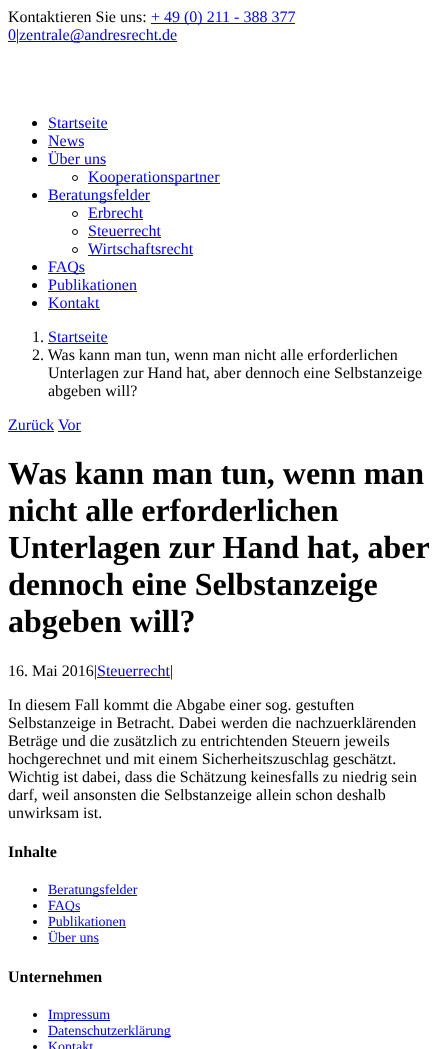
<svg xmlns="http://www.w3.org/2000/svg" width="444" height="1049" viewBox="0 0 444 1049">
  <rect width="100%" height="100%" fill="rgb(255,255,255)"/>
  <text x="8" y="22" font-family="Liberation Serif" font-size="16" fill="rgb(0,0,0)">Kontaktieren Sie uns:</text>
  <rect x="151" y="23" width="144" height="1" fill="rgb(0,0,238)"/>
  <g font-family="Liberation Serif" font-size="16" fill="rgb(0,0,238)">
    <text x="151" y="22">+ 49 (0) 211 - 388 377</text>
    <text x="8" y="40">0</text>
  </g>
  <rect x="8" y="41" width="8" height="1" fill="rgb(0,0,238)"/>
  <text x="16" y="40" font-family="Liberation Serif" font-size="16" fill="rgb(0,0,0)">|</text>
  <rect x="19" y="41" width="158" height="1" fill="rgb(0,0,238)"/>
  <text x="19" y="40" font-family="Liberation Serif" font-size="16" fill="rgb(0,0,238)">zentrale@andresrecht.de</text>
  <circle cx="34.5" cy="123.5" r="2.5" fill="rgb(0,0,0)"/>
  <text x="48" y="128" font-family="Liberation Serif" font-size="16" fill="rgb(0,0,238)">Startseite</text>
  <rect x="48" y="129" width="60" height="1" fill="rgb(0,0,238)"/>
  <circle cx="34.5" cy="141.5" r="2.5" fill="rgb(0,0,0)"/>
  <text x="48" y="146" font-family="Liberation Serif" font-size="16" fill="rgb(0,0,238)">News</text>
  <rect x="48" y="147" width="36" height="1" fill="rgb(0,0,238)"/>
  <circle cx="34.5" cy="159.5" r="2.5" fill="rgb(0,0,0)"/>
  <text x="48" y="164" font-family="Liberation Serif" font-size="16" fill="rgb(0,0,238)">Über uns</text>
  <rect x="48" y="165" width="58" height="1" fill="rgb(0,0,238)"/>
  <circle cx="75" cy="178" r="2.5" fill="none" stroke="rgb(0,0,0)"/>
  <rect x="88" y="183" width="132" height="1" fill="rgb(0,0,238)"/>
  <text x="88" y="182" font-family="Liberation Serif" font-size="16" fill="rgb(0,0,238)">Kooperationspartner</text>
  <circle cx="34.5" cy="195.5" r="2.5" fill="rgb(0,0,0)"/>
  <rect x="48" y="201" width="102" height="1" fill="rgb(0,0,238)"/>
  <text x="48" y="200" font-family="Liberation Serif" font-size="16" fill="rgb(0,0,238)">Beratungsfelder</text>
  <circle cx="75" cy="214" r="2.5" fill="none" stroke="rgb(0,0,0)"/>
  <text x="88" y="218" font-family="Liberation Serif" font-size="16" fill="rgb(0,0,238)">Erbrecht</text>
  <rect x="88" y="219" width="55" height="1" fill="rgb(0,0,238)"/>
  <circle cx="75" cy="232" r="2.5" fill="none" stroke="rgb(0,0,0)"/>
  <text x="88" y="236" font-family="Liberation Serif" font-size="16" fill="rgb(0,0,238)">Steuerrecht</text>
  <rect x="88" y="237" width="73" height="1" fill="rgb(0,0,238)"/>
  <circle cx="75" cy="250" r="2.5" fill="none" stroke="rgb(0,0,0)"/>
  <text x="88" y="254" font-family="Liberation Serif" font-size="16" fill="rgb(0,0,238)">Wirtschaftsrecht</text>
  <rect x="88" y="255" width="105" height="1" fill="rgb(0,0,238)"/>
  <circle cx="34.5" cy="267.5" r="2.5" fill="rgb(0,0,0)"/>
  <rect x="48" y="273" width="37" height="1" fill="rgb(0,0,238)"/>
  <text x="48" y="272" font-family="Liberation Serif" font-size="16" fill="rgb(0,0,238)">FAQs</text>
  <circle cx="34.5" cy="285.5" r="2.5" fill="rgb(0,0,0)"/>
  <text x="48" y="290" font-family="Liberation Serif" font-size="16" fill="rgb(0,0,238)">Publikationen</text>
  <rect x="48" y="291" width="89" height="1" fill="rgb(0,0,238)"/>
  <circle cx="34.5" cy="303.5" r="2.5" fill="rgb(0,0,0)"/>
  <text x="48" y="308" font-family="Liberation Serif" font-size="16" fill="rgb(0,0,238)">Kontakt</text>
  <rect x="48" y="309" width="52" height="1" fill="rgb(0,0,238)"/>
  <text x="32" y="342" font-family="Liberation Serif" font-size="16" fill="rgb(0,0,0)">1.</text>
  <text x="48" y="342" font-family="Liberation Serif" font-size="16" fill="rgb(0,0,238)">Startseite</text>
  <rect x="48" y="343" width="60" height="1" fill="rgb(0,0,238)"/>
  <g font-family="Liberation Serif" font-size="16" fill="rgb(0,0,0)">
    <text x="32" y="360">2. Was kann man tun, wenn man nicht alle erforderlichen</text>
    <text>
      <tspan x="48" y="378">Unterlagen zur Hand hat, aber dennoch eine Selbstanzeige</tspan>
      <tspan x="48" y="396">abgeben will?</tspan>
    </text>
  </g>
  <text x="8" y="430" font-family="Liberation Serif" font-size="16" fill="rgb(0,0,238)">Zurück Vor</text>
  <rect x="8" y="431" width="46" height="1" fill="rgb(0,0,238)"/>
  <rect x="58" y="431" width="23" height="1" fill="rgb(0,0,238)"/>
  <g font-family="Liberation Serif" font-size="32" font-weight="bold" fill="rgb(0,0,0)">
    <text>
      <tspan x="8" y="484">Was kann man tun, wenn man</tspan>
      <tspan x="8" y="521">nicht alle erforderlichen</tspan>
      <tspan x="8" y="558">Unterlagen zur Hand hat, aber</tspan>
      <tspan x="8" y="595">dennoch eine Selbstanzeige</tspan>
      <tspan x="8" y="632">abgeben will?</tspan>
    </text>
  </g>
  <text x="8" y="676" font-family="Liberation Serif" font-size="16" fill="rgb(0,0,0)">16. Mai 2016|</text>
  <text x="97" y="676" font-family="Liberation Serif" font-size="16" fill="rgb(0,0,238)">Steuerrecht</text>
  <rect x="97" y="677" width="73" height="1" fill="rgb(0,0,238)"/>
  <g font-family="Liberation Serif" font-size="16" fill="rgb(0,0,0)">
    <text x="170" y="676">|</text>
    <text>
      <tspan x="8" y="710">In diesem Fall kommt die Abgabe einer sog. gestuften</tspan>
      <tspan x="8" y="728">Selbstanzeige in Betracht. Dabei werden die nachzuerklärenden</tspan>
      <tspan x="8" y="746">Beträge und die zusätzlich zu entrichtenden Steuern jeweils</tspan>
      <tspan x="8" y="764">hochgerechnet und mit einem Sicherheitszuschlag geschätzt.</tspan>
      <tspan x="8" y="782">Wichtig ist dabei, dass die Schätzung keinesfalls zu niedrig sein</tspan>
      <tspan x="8" y="800">darf, weil ansonsten die Selbstanzeige allein schon deshalb</tspan>
      <tspan x="8" y="818">unwirksam ist.</tspan>
    </text>
  </g>
  <text x="8" y="857" font-family="Liberation Serif" font-size="16" font-weight="bold" fill="rgb(0,0,0)">Inhalte</text>
  <circle cx="35" cy="890" r="2" fill="rgb(0,0,0)"/>
  <rect x="48" y="895" width="89" height="1" fill="rgb(0,0,238)"/>
  <text x="48" y="894" font-family="Liberation Serif" font-size="14" fill="rgb(0,0,238)">Beratungsfelder</text>
  <circle cx="35" cy="906" r="2" fill="rgb(0,0,0)"/>
  <rect x="48" y="911" width="32" height="1" fill="rgb(0,0,238)"/>
  <text x="48" y="910" font-family="Liberation Serif" font-size="14" fill="rgb(0,0,238)">FAQs</text>
  <circle cx="35" cy="922" r="2" fill="rgb(0,0,0)"/>
  <text x="48" y="926" font-family="Liberation Serif" font-size="14" fill="rgb(0,0,238)">Publikationen</text>
  <rect x="48" y="927" width="78" height="1" fill="rgb(0,0,238)"/>
  <circle cx="35" cy="938" r="2" fill="rgb(0,0,0)"/>
  <text x="48" y="942" font-family="Liberation Serif" font-size="14" fill="rgb(0,0,238)">Über uns</text>
  <rect x="48" y="943" width="51" height="1" fill="rgb(0,0,238)"/>
  <text x="8" y="982" font-family="Liberation Serif" font-size="16" font-weight="bold" fill="rgb(0,0,0)">Unternehmen</text>
  <circle cx="35" cy="1015" r="2" fill="rgb(0,0,0)"/>
  <rect x="48" y="1020" width="62" height="1" fill="rgb(0,0,238)"/>
  <text x="48" y="1019" font-family="Liberation Serif" font-size="14" fill="rgb(0,0,238)">Impressum</text>
  <circle cx="35" cy="1031" r="2" fill="rgb(0,0,0)"/>
  <rect x="48" y="1036" width="123" height="1" fill="rgb(0,0,238)"/>
  <text x="48" y="1035" font-family="Liberation Serif" font-size="14" fill="rgb(0,0,238)">Datenschutzerklärung</text>
  <circle cx="35" cy="1047" r="2" fill="rgb(0,0,0)"/>
  <text x="48" y="1051" font-family="Liberation Serif" font-size="14" fill="rgb(0,0,238)">Kontakt</text>
</svg>
